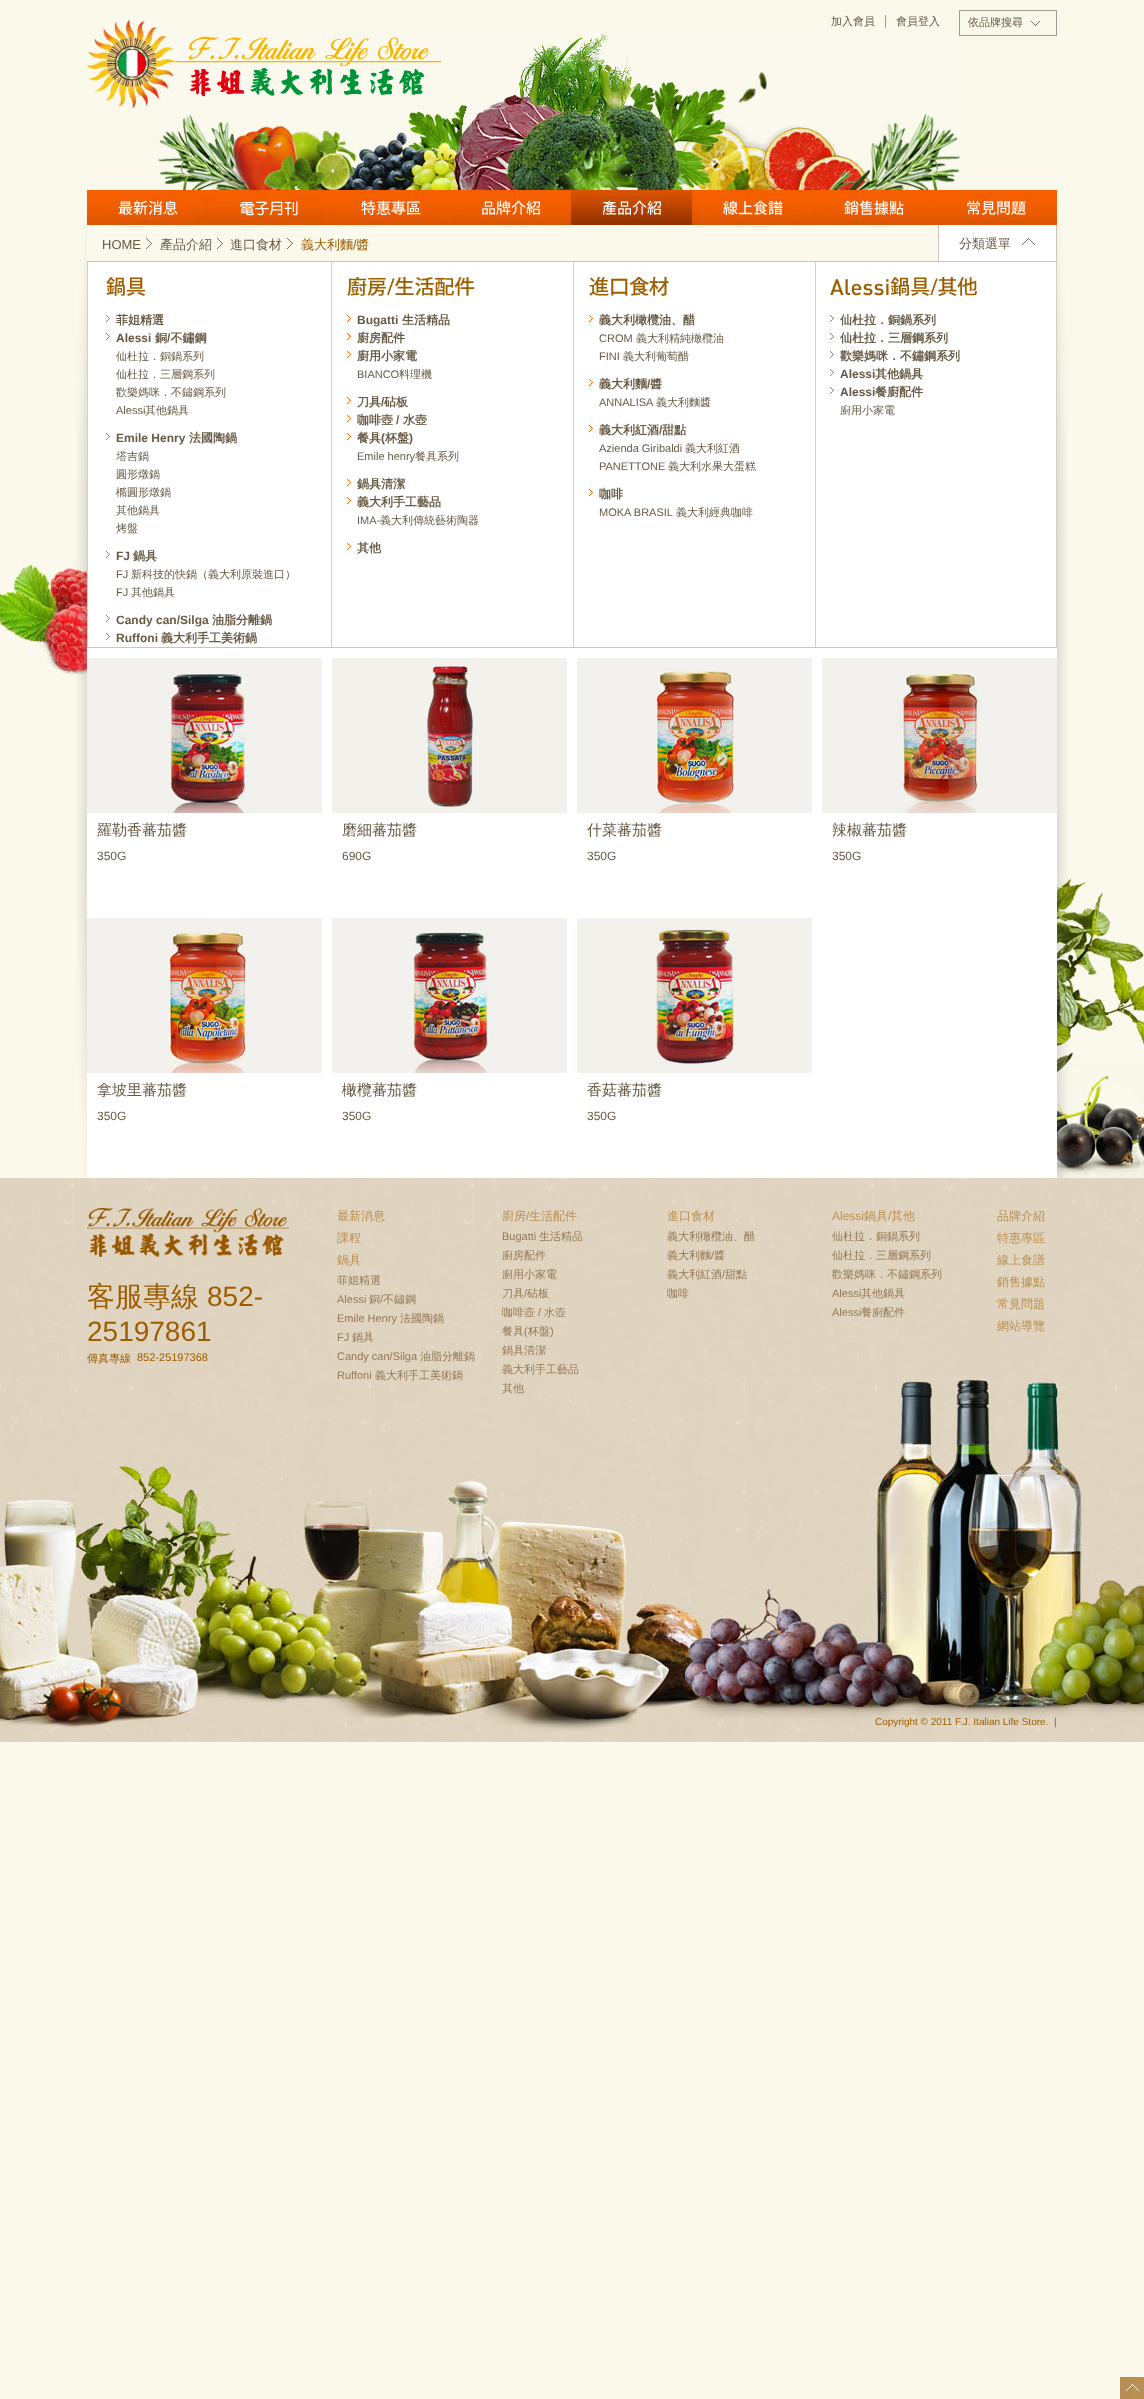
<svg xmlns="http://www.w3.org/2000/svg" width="1144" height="2399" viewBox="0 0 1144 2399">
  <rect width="100%" height="100%" fill="rgb(250,249,236)"/>
  <text x="831" y="25" font-family="WenQuanYi Zen Hei" font-size="11" font-weight="500" fill="rgb(102,89,67)">加入會員</text>
  <rect x="885" y="15" width="1" height="13" fill="rgb(158,154,150)"/>
  <text x="896" y="25" font-family="WenQuanYi Zen Hei" font-size="11" font-weight="500" fill="rgb(102,89,67)">會員登入</text>
  <image x="154" y="33" width="806" height="157" href="pic2.png"/>
  <rect x="959.5" y="10.5" width="97" height="25" fill="none" stroke="rgb(158,154,150)"/>
  <text x="968" y="26" font-family="WenQuanYi Zen Hei" font-size="11" font-weight="500" fill="rgb(102,89,67)">依品牌搜尋</text>
  <image x="1031" y="21" width="9" height="5" href="pic1.png"/>
  <image x="87" y="20" width="354" height="88" href="pic3.png"/>
  <image x="87" y="190" width="121" height="35" href="pic4.png"/>
  <image x="208" y="190" width="121" height="35" href="pic5.png"/>
  <image x="329" y="190" width="121" height="35" href="pic6.png"/>
  <image x="450" y="190" width="121" height="35" href="pic7.png"/>
  <image x="571" y="190" width="121" height="35" href="pic8.png"/>
  <image x="692" y="190" width="121" height="35" href="pic9.png"/>
  <image x="813" y="190" width="122" height="35" href="pic10.png"/>
  <image x="935" y="190" width="122" height="35" href="pic11.png"/>
  <text x="102" y="249" font-family="Liberation Sans" font-size="13" fill="rgb(102,89,67)">HOME</text>
  <image x="146" y="238" width="6" height="11" href="pic12.png"/>
  <text x="160" y="249" font-family="WenQuanYi Zen Hei" font-size="13" font-weight="500" fill="rgb(102,89,67)">產品介紹</text>
  <image x="217" y="238" width="6" height="11" href="pic12.png"/>
  <text x="230" y="249" font-family="WenQuanYi Zen Hei" font-size="13" font-weight="500" fill="rgb(102,89,67)">進口食材</text>
  <image x="287" y="238" width="6" height="11" href="pic12.png"/>
  <text x="301" y="249" font-family="WenQuanYi Zen Hei" font-size="13" font-weight="500" fill="rgb(156,93,0)">義大利麵</text>
  <text x="353" y="249" font-family="Liberation Sans" font-size="13" fill="rgb(156,93,0)">/</text>
  <text x="356" y="249" font-family="WenQuanYi Zen Hei" font-size="13" font-weight="500" fill="rgb(156,93,0)">醬</text>
  <rect x="939" y="225" width="117" height="36" fill="rgb(255,255,255)"/>
  <rect x="1056" y="225" width="1" height="36" fill="rgb(203,196,185)"/>
  <rect x="938" y="225" width="1" height="36" fill="rgb(203,196,185)"/>
  <text x="959" y="248" font-family="WenQuanYi Zen Hei" font-size="13" font-weight="500" fill="rgb(102,89,67)">分類選單</text>
  <image x="1022" y="238" width="13" height="7" href="pic13.png"/>
  <image x="76" y="536" width="992" height="326" href="pic15.png"/>
  <image x="0" y="560" width="87" height="120" href="pic14.png"/>
  <image x="76" y="220" width="11" height="316" href="pic16.png"/>
  <image x="87" y="262" width="970" height="385" href="pic17.png"/>
  <rect x="87" y="261" width="970" height="1" fill="rgb(203,196,185)"/>
  <image x="106" y="277" width="40" height="19" href="pic18.png"/>
  <image x="106" y="315" width="4" height="7" href="pic19.png"/>
  <text x="116" y="324" font-family="WenQuanYi Zen Hei" font-size="12" font-weight="bold" fill="rgb(102,89,67)">菲姐精選</text>
  <image x="106" y="333" width="4" height="7" href="pic19.png"/>
  <text x="116" y="342" font-family="Liberation Sans" font-size="12" font-weight="bold" fill="rgb(102,89,67)">Alessi</text>
  <text x="155" y="342" font-family="WenQuanYi Zen Hei" font-size="12" font-weight="bold" fill="rgb(102,89,67)">銅 不鏽鋼</text>
  <text x="167" y="342" font-family="Liberation Sans" font-size="12" font-weight="bold" fill="rgb(102,89,67)">/</text>
  <g font-family="WenQuanYi Zen Hei" font-size="11" font-weight="500" fill="rgb(102,89,67)">
    <text>
      <tspan x="116" y="360">仙杜拉．銅鍋系列</tspan>
      <tspan x="116" y="378">仙杜拉．三層鋼系列</tspan>
      <tspan x="116" y="396">歡樂媽咪．不鏽鋼系列</tspan>
    </text>
  </g>
  <text x="116" y="414" font-family="Liberation Sans" font-size="11" fill="rgb(102,89,67)">Alessi</text>
  <text x="145" y="414" font-family="WenQuanYi Zen Hei" font-size="11" font-weight="500" fill="rgb(102,89,67)">其他鍋具</text>
  <image x="106" y="433" width="4" height="7" href="pic19.png"/>
  <text x="116" y="442" font-family="Liberation Sans" font-size="12" font-weight="bold" fill="rgb(102,89,67)">Emile Henry</text>
  <text x="189" y="442" font-family="WenQuanYi Zen Hei" font-size="12" font-weight="bold" fill="rgb(102,89,67)">法國陶鍋</text>
  <g font-family="WenQuanYi Zen Hei" font-size="11" font-weight="500" fill="rgb(102,89,67)">
    <text>
      <tspan x="116" y="460">塔吉鍋</tspan>
      <tspan x="116" y="478">圓形燉鍋</tspan>
      <tspan x="116" y="496">橢圓形燉鍋</tspan>
      <tspan x="116" y="514">其他鍋具</tspan>
      <tspan x="116" y="532">烤盤</tspan>
    </text>
  </g>
  <image x="106" y="551" width="4" height="7" href="pic19.png"/>
  <text x="116" y="560" font-family="Liberation Sans" font-size="12" font-weight="bold" fill="rgb(102,89,67)">FJ</text>
  <text x="133" y="560" font-family="WenQuanYi Zen Hei" font-size="12" font-weight="bold" fill="rgb(102,89,67)">鍋具</text>
  <text x="116" y="578" font-family="Liberation Sans" font-size="11" fill="rgb(102,89,67)">FJ</text>
  <text x="131" y="578" font-family="WenQuanYi Zen Hei" font-size="11" font-weight="500" fill="rgb(102,89,67)">新科技的快鍋（義大利原裝進口）</text>
  <text x="116" y="596" font-family="Liberation Sans" font-size="11" fill="rgb(102,89,67)">FJ</text>
  <text x="131" y="596" font-family="WenQuanYi Zen Hei" font-size="11" font-weight="500" fill="rgb(102,89,67)">其他鍋具</text>
  <image x="106" y="615" width="4" height="7" href="pic19.png"/>
  <text x="116" y="624" font-family="Liberation Sans" font-size="12" font-weight="bold" fill="rgb(102,89,67)">Candy can/Silga</text>
  <text x="212" y="624" font-family="WenQuanYi Zen Hei" font-size="12" font-weight="bold" fill="rgb(102,89,67)">油脂分離鍋</text>
  <image x="106" y="633" width="4" height="7" href="pic19.png"/>
  <text x="116" y="642" font-family="Liberation Sans" font-size="12" font-weight="bold" fill="rgb(102,89,67)">Ruffoni</text>
  <text x="161" y="642" font-family="WenQuanYi Zen Hei" font-size="12" font-weight="bold" fill="rgb(102,89,67)">義大利手工美術鍋</text>
  <image x="347" y="277" width="128" height="19" href="pic20.png"/>
  <image x="347" y="315" width="4" height="7" href="pic19.png"/>
  <text x="357" y="324" font-family="Liberation Sans" font-size="12" font-weight="bold" fill="rgb(102,89,67)">Bugatti</text>
  <text x="402" y="324" font-family="WenQuanYi Zen Hei" font-size="12" font-weight="bold" fill="rgb(102,89,67)">生活精品</text>
  <image x="347" y="333" width="4" height="7" href="pic19.png"/>
  <text x="357" y="342" font-family="WenQuanYi Zen Hei" font-size="12" font-weight="bold" fill="rgb(102,89,67)">廚房配件</text>
  <image x="347" y="351" width="4" height="7" href="pic19.png"/>
  <text x="357" y="360" font-family="WenQuanYi Zen Hei" font-size="12" font-weight="bold" fill="rgb(102,89,67)">廚用小家電</text>
  <text x="357" y="378" font-family="Liberation Sans" font-size="11" fill="rgb(102,89,67)">BIANCO</text>
  <text x="399" y="378" font-family="WenQuanYi Zen Hei" font-size="11" font-weight="500" fill="rgb(102,89,67)">料理機</text>
  <image x="347" y="397" width="4" height="7" href="pic19.png"/>
  <text x="357" y="406" font-family="WenQuanYi Zen Hei" font-size="12" font-weight="bold" fill="rgb(102,89,67)">刀具</text>
  <text x="381" y="406" font-family="Liberation Sans" font-size="12" font-weight="bold" fill="rgb(102,89,67)">/</text>
  <text x="384" y="406" font-family="WenQuanYi Zen Hei" font-size="12" font-weight="bold" fill="rgb(102,89,67)">砧板</text>
  <image x="347" y="415" width="4" height="7" href="pic19.png"/>
  <text x="357" y="424" font-family="WenQuanYi Zen Hei" font-size="12" font-weight="bold" fill="rgb(102,89,67)">咖啡壺</text>
  <text x="396" y="424" font-family="Liberation Sans" font-size="12" font-weight="bold" fill="rgb(102,89,67)">/</text>
  <text x="403" y="424" font-family="WenQuanYi Zen Hei" font-size="12" font-weight="bold" fill="rgb(102,89,67)">水壺</text>
  <image x="347" y="433" width="4" height="7" href="pic19.png"/>
  <text x="357" y="442" font-family="WenQuanYi Zen Hei" font-size="12" font-weight="bold" fill="rgb(102,89,67)">餐具</text>
  <text x="381" y="442" font-family="Liberation Sans" font-size="12" font-weight="bold" fill="rgb(102,89,67)">(</text>
  <text x="385" y="442" font-family="WenQuanYi Zen Hei" font-size="12" font-weight="bold" fill="rgb(102,89,67)">杯盤</text>
  <text x="409" y="442" font-family="Liberation Sans" font-size="12" font-weight="bold" fill="rgb(102,89,67)">)</text>
  <text x="357" y="460" font-family="Liberation Sans" font-size="11" fill="rgb(102,89,67)">Emile henry</text>
  <text x="415" y="460" font-family="WenQuanYi Zen Hei" font-size="11" font-weight="500" fill="rgb(102,89,67)">餐具系列</text>
  <image x="347" y="479" width="4" height="7" href="pic19.png"/>
  <text x="357" y="488" font-family="WenQuanYi Zen Hei" font-size="12" font-weight="bold" fill="rgb(102,89,67)">鍋具清潔</text>
  <image x="347" y="497" width="4" height="7" href="pic19.png"/>
  <text x="357" y="506" font-family="WenQuanYi Zen Hei" font-size="12" font-weight="bold" fill="rgb(102,89,67)">義大利手工藝品</text>
  <text x="357" y="524" font-family="Liberation Sans" font-size="11" fill="rgb(102,89,67)">IMA-</text>
  <text x="380" y="524" font-family="WenQuanYi Zen Hei" font-size="11" font-weight="500" fill="rgb(102,89,67)">義大利傳統藝術陶器</text>
  <image x="347" y="543" width="4" height="7" href="pic19.png"/>
  <text x="357" y="552" font-family="WenQuanYi Zen Hei" font-size="12" font-weight="bold" fill="rgb(102,89,67)">其他</text>
  <image x="589" y="277" width="80" height="19" href="pic21.png"/>
  <image x="589" y="315" width="4" height="7" href="pic19.png"/>
  <text x="599" y="324" font-family="WenQuanYi Zen Hei" font-size="12" font-weight="bold" fill="rgb(102,89,67)">義大利橄欖油、醋</text>
  <text x="599" y="342" font-family="Liberation Sans" font-size="11" fill="rgb(102,89,67)">CROM</text>
  <text x="636" y="342" font-family="WenQuanYi Zen Hei" font-size="11" font-weight="500" fill="rgb(102,89,67)">義大利精純橄欖油</text>
  <text x="599" y="360" font-family="Liberation Sans" font-size="11" fill="rgb(102,89,67)">FINI</text>
  <text x="623" y="360" font-family="WenQuanYi Zen Hei" font-size="11" font-weight="500" fill="rgb(102,89,67)">義大利葡萄醋</text>
  <image x="589" y="379" width="4" height="7" href="pic19.png"/>
  <text x="599" y="388" font-family="WenQuanYi Zen Hei" font-size="12" font-weight="bold" fill="rgb(102,89,67)">義大利麵</text>
  <text x="647" y="388" font-family="Liberation Sans" font-size="12" font-weight="bold" fill="rgb(102,89,67)">/</text>
  <text x="650" y="388" font-family="WenQuanYi Zen Hei" font-size="12" font-weight="bold" fill="rgb(102,89,67)">醬</text>
  <text x="599" y="406" font-family="Liberation Sans" font-size="11" fill="rgb(102,89,67)">ANNALISA</text>
  <text x="656" y="406" font-family="WenQuanYi Zen Hei" font-size="11" font-weight="500" fill="rgb(102,89,67)">義大利麵醬</text>
  <image x="589" y="425" width="4" height="7" href="pic19.png"/>
  <text x="599" y="434" font-family="WenQuanYi Zen Hei" font-size="12" font-weight="bold" fill="rgb(102,89,67)">義大利紅酒</text>
  <text x="659" y="434" font-family="Liberation Sans" font-size="12" font-weight="bold" fill="rgb(102,89,67)">/</text>
  <text x="662" y="434" font-family="WenQuanYi Zen Hei" font-size="12" font-weight="bold" fill="rgb(102,89,67)">甜點</text>
  <text x="599" y="452" font-family="Liberation Sans" font-size="11" fill="rgb(102,89,67)">Azienda Giribaldi</text>
  <text x="685" y="452" font-family="WenQuanYi Zen Hei" font-size="11" font-weight="500" fill="rgb(102,89,67)">義大利紅酒</text>
  <text x="599" y="470" font-family="Liberation Sans" font-size="11" fill="rgb(102,89,67)">PANETTONE</text>
  <text x="668" y="470" font-family="WenQuanYi Zen Hei" font-size="11" font-weight="500" fill="rgb(102,89,67)">義大利水果大蛋糕</text>
  <image x="589" y="489" width="4" height="7" href="pic19.png"/>
  <text x="599" y="498" font-family="WenQuanYi Zen Hei" font-size="12" font-weight="bold" fill="rgb(102,89,67)">咖啡</text>
  <text x="599" y="516" font-family="Liberation Sans" font-size="11" fill="rgb(102,89,67)">MOKA BRASIL</text>
  <text x="676" y="516" font-family="WenQuanYi Zen Hei" font-size="11" font-weight="500" fill="rgb(102,89,67)">義大利經典咖啡</text>
  <image x="830" y="277" width="147" height="19" href="pic22.png"/>
  <image x="830" y="315" width="4" height="7" href="pic19.png"/>
  <text x="840" y="324" font-family="WenQuanYi Zen Hei" font-size="12" font-weight="bold" fill="rgb(102,89,67)">仙杜拉．銅鍋系列</text>
  <image x="830" y="333" width="4" height="7" href="pic19.png"/>
  <text x="840" y="342" font-family="WenQuanYi Zen Hei" font-size="12" font-weight="bold" fill="rgb(102,89,67)">仙杜拉．三層鋼系列</text>
  <image x="830" y="351" width="4" height="7" href="pic19.png"/>
  <text x="840" y="360" font-family="WenQuanYi Zen Hei" font-size="12" font-weight="bold" fill="rgb(102,89,67)">歡樂媽咪．不鏽鋼系列</text>
  <image x="830" y="369" width="4" height="7" href="pic19.png"/>
  <text x="840" y="378" font-family="Liberation Sans" font-size="12" font-weight="bold" fill="rgb(102,89,67)">Alessi</text>
  <text x="875" y="378" font-family="WenQuanYi Zen Hei" font-size="12" font-weight="bold" fill="rgb(102,89,67)">其他鍋具</text>
  <image x="830" y="387" width="4" height="7" href="pic19.png"/>
  <text x="840" y="396" font-family="Liberation Sans" font-size="12" font-weight="bold" fill="rgb(102,89,67)">Alessi</text>
  <text x="875" y="396" font-family="WenQuanYi Zen Hei" font-size="12" font-weight="bold" fill="rgb(102,89,67)">餐廚配件</text>
  <text x="840" y="414" font-family="WenQuanYi Zen Hei" font-size="11" font-weight="500" fill="rgb(102,89,67)">廚用小家電</text>
  <image x="1057" y="220" width="11" height="316" href="pic23.png"/>
  <image x="76" y="862" width="11" height="316" href="pic24.png"/>
  <rect x="87" y="648" width="970" height="530" fill="rgb(255,255,255)"/>
  <rect x="87" y="647" width="970" height="1" fill="rgb(203,196,185)"/>
  <image x="87" y="658" width="235" height="155" href="pic25.png"/>
  <text x="97" y="835" font-family="WenQuanYi Zen Hei" font-size="15" font-weight="500" fill="rgb(102,89,67)">羅勒香蕃茄醬</text>
  <text x="97" y="860" font-family="Liberation Sans" font-size="12" fill="rgb(102,89,67)">350G</text>
  <image x="332" y="658" width="235" height="155" href="pic26.png"/>
  <text x="342" y="835" font-family="WenQuanYi Zen Hei" font-size="15" font-weight="500" fill="rgb(102,89,67)">磨細蕃茄醬</text>
  <text x="342" y="860" font-family="Liberation Sans" font-size="12" fill="rgb(102,89,67)">690G</text>
  <image x="577" y="658" width="235" height="155" href="pic27.png"/>
  <text x="587" y="835" font-family="WenQuanYi Zen Hei" font-size="15" font-weight="500" fill="rgb(102,89,67)">什菜蕃茄醬</text>
  <text x="587" y="860" font-family="Liberation Sans" font-size="12" fill="rgb(102,89,67)">350G</text>
  <image x="822" y="658" width="235" height="155" href="pic28.png"/>
  <text x="832" y="835" font-family="WenQuanYi Zen Hei" font-size="15" font-weight="500" fill="rgb(102,89,67)">辣椒蕃茄醬</text>
  <text x="832" y="860" font-family="Liberation Sans" font-size="12" fill="rgb(102,89,67)">350G</text>
  <image x="87" y="918" width="235" height="155" href="pic29.png"/>
  <text x="97" y="1095" font-family="WenQuanYi Zen Hei" font-size="15" font-weight="500" fill="rgb(102,89,67)">拿坡里蕃茄醬</text>
  <text x="97" y="1120" font-family="Liberation Sans" font-size="12" fill="rgb(102,89,67)">350G</text>
  <image x="332" y="918" width="235" height="155" href="pic30.png"/>
  <text x="342" y="1095" font-family="WenQuanYi Zen Hei" font-size="15" font-weight="500" fill="rgb(102,89,67)">橄欖蕃茄醬</text>
  <text x="342" y="1120" font-family="Liberation Sans" font-size="12" fill="rgb(102,89,67)">350G</text>
  <image x="577" y="918" width="235" height="155" href="pic31.png"/>
  <text x="587" y="1095" font-family="WenQuanYi Zen Hei" font-size="15" font-weight="500" fill="rgb(102,89,67)">香菇蕃茄醬</text>
  <text x="587" y="1120" font-family="Liberation Sans" font-size="12" fill="rgb(102,89,67)">350G</text>
  <image x="1057" y="862" width="11" height="12" href="pic32.png"/>
  <image x="1057" y="874" width="87" height="304" href="pic33.png"/>
  <image x="0" y="1178" width="1144" height="200" href="pic34.png"/>
  <image x="0" y="1378" width="1144" height="364" href="pic35.png"/>
  <image x="87" y="1208" width="202" height="49" href="pic36.png"/>
  <text x="87" y="1306" font-family="WenQuanYi Zen Hei" font-size="28" font-weight="500" fill="rgb(156,93,0)">客服專線</text>
  <g font-family="Liberation Sans" font-size="28" fill="rgb(156,93,0)">
    <text x="207" y="1306">852-</text>
    <text x="87" y="1341">25197861</text>
  </g>
  <text x="87" y="1362" font-family="WenQuanYi Zen Hei" font-size="11" font-weight="500" fill="rgb(156,93,0)">傳真專線</text>
  <text x="137" y="1361" font-family="Liberation Sans" font-size="11" fill="rgb(156,93,0)">852-25197368</text>
  <g font-family="WenQuanYi Zen Hei" font-size="12" font-weight="500" fill="rgb(186,143,82)">
    <text>
      <tspan x="337" y="1220">最新消息</tspan>
      <tspan x="337" y="1242">課程</tspan>
      <tspan x="337" y="1264">鍋具</tspan>
    </text>
  </g>
  <text x="337" y="1284" font-family="WenQuanYi Zen Hei" font-size="11" font-weight="500" fill="rgb(147,120,84)">菲姐精選</text>
  <text x="337" y="1303" font-family="Liberation Sans" font-size="11" fill="rgb(147,120,84)">Alessi</text>
  <text x="369" y="1303" font-family="WenQuanYi Zen Hei" font-size="11" font-weight="500" fill="rgb(147,120,84)">銅</text>
  <text x="380" y="1303" font-family="Liberation Sans" font-size="11" fill="rgb(147,120,84)">/</text>
  <text x="383" y="1303" font-family="WenQuanYi Zen Hei" font-size="11" font-weight="500" fill="rgb(147,120,84)">不鏽鋼</text>
  <text x="337" y="1322" font-family="Liberation Sans" font-size="11" fill="rgb(147,120,84)">Emile Henry</text>
  <text x="400" y="1322" font-family="WenQuanYi Zen Hei" font-size="11" font-weight="500" fill="rgb(147,120,84)">法國陶鍋</text>
  <text x="337" y="1341" font-family="Liberation Sans" font-size="11" fill="rgb(147,120,84)">FJ</text>
  <text x="352" y="1341" font-family="WenQuanYi Zen Hei" font-size="11" font-weight="500" fill="rgb(147,120,84)">鍋具</text>
  <text x="337" y="1360" font-family="Liberation Sans" font-size="11" fill="rgb(147,120,84)">Candy can/Silga</text>
  <text x="420" y="1360" font-family="WenQuanYi Zen Hei" font-size="11" font-weight="500" fill="rgb(147,120,84)">油脂分離鍋</text>
  <text x="337" y="1379" font-family="Liberation Sans" font-size="11" fill="rgb(147,120,84)">Ruffoni</text>
  <text x="375" y="1379" font-family="WenQuanYi Zen Hei" font-size="11" font-weight="500" fill="rgb(147,120,84)">義大利手工美術鍋</text>
  <text x="502" y="1220" font-family="WenQuanYi Zen Hei" font-size="12" font-weight="500" fill="rgb(186,143,82)">廚房</text>
  <text x="526" y="1220" font-family="Liberation Sans" font-size="12" fill="rgb(186,143,82)">/</text>
  <text x="529" y="1220" font-family="WenQuanYi Zen Hei" font-size="12" font-weight="500" fill="rgb(186,143,82)">生活配件</text>
  <text x="502" y="1240" font-family="Liberation Sans" font-size="11" fill="rgb(147,120,84)">Bugatti</text>
  <g font-family="WenQuanYi Zen Hei" font-size="11" font-weight="500" fill="rgb(147,120,84)">
    <text x="539" y="1240">生活精品</text>
    <text>
      <tspan x="502" y="1259">廚房配件</tspan>
      <tspan x="502" y="1278">廚用小家電</tspan>
      <tspan x="502" y="1297">刀具</tspan>
    </text>
  </g>
  <text x="524" y="1297" font-family="Liberation Sans" font-size="11" fill="rgb(147,120,84)">/</text>
  <g font-family="WenQuanYi Zen Hei" font-size="11" font-weight="500" fill="rgb(147,120,84)">
    <text x="527" y="1297">砧板</text>
    <text x="502" y="1316">咖啡壺</text>
  </g>
  <text x="538" y="1316" font-family="Liberation Sans" font-size="11" fill="rgb(147,120,84)">/</text>
  <g font-family="WenQuanYi Zen Hei" font-size="11" font-weight="500" fill="rgb(147,120,84)">
    <text x="544" y="1316">水壺</text>
    <text x="502" y="1335">餐具</text>
  </g>
  <text x="524" y="1335" font-family="Liberation Sans" font-size="11" fill="rgb(147,120,84)">(</text>
  <text x="528" y="1335" font-family="WenQuanYi Zen Hei" font-size="11" font-weight="500" fill="rgb(147,120,84)">杯盤</text>
  <text x="550" y="1335" font-family="Liberation Sans" font-size="11" fill="rgb(147,120,84)">)</text>
  <g font-family="WenQuanYi Zen Hei" font-size="11" font-weight="500" fill="rgb(147,120,84)">
    <text>
      <tspan x="502" y="1354">鍋具清潔</tspan>
      <tspan x="502" y="1373">義大利手工藝品</tspan>
      <tspan x="502" y="1392">其他</tspan>
    </text>
  </g>
  <text x="667" y="1220" font-family="WenQuanYi Zen Hei" font-size="12" font-weight="500" fill="rgb(186,143,82)">進口食材</text>
  <g font-family="WenQuanYi Zen Hei" font-size="11" font-weight="500" fill="rgb(147,120,84)">
    <text>
      <tspan x="667" y="1240">義大利橄欖油、醋</tspan>
      <tspan x="667" y="1259">義大利麵</tspan>
    </text>
  </g>
  <text x="711" y="1259" font-family="Liberation Sans" font-size="11" fill="rgb(147,120,84)">/</text>
  <g font-family="WenQuanYi Zen Hei" font-size="11" font-weight="500" fill="rgb(147,120,84)">
    <text x="714" y="1259">醬</text>
    <text x="667" y="1278">義大利紅酒</text>
  </g>
  <text x="722" y="1278" font-family="Liberation Sans" font-size="11" fill="rgb(147,120,84)">/</text>
  <g font-family="WenQuanYi Zen Hei" font-size="11" font-weight="500" fill="rgb(147,120,84)">
    <text x="725" y="1278">甜點</text>
    <text x="667" y="1297">咖啡</text>
  </g>
  <text x="832" y="1220" font-family="Liberation Sans" font-size="12" fill="rgb(186,143,82)">Alessi</text>
  <text x="864" y="1220" font-family="WenQuanYi Zen Hei" font-size="12" font-weight="500" fill="rgb(186,143,82)">鍋具</text>
  <text x="888" y="1220" font-family="Liberation Sans" font-size="12" fill="rgb(186,143,82)">/</text>
  <text x="891" y="1220" font-family="WenQuanYi Zen Hei" font-size="12" font-weight="500" fill="rgb(186,143,82)">其他</text>
  <g font-family="WenQuanYi Zen Hei" font-size="11" font-weight="500" fill="rgb(147,120,84)">
    <text>
      <tspan x="832" y="1240">仙杜拉．銅鍋系列</tspan>
      <tspan x="832" y="1259">仙杜拉．三層鋼系列</tspan>
      <tspan x="832" y="1278">歡樂媽咪．不鏽鋼系列</tspan>
    </text>
  </g>
  <text x="832" y="1297" font-family="Liberation Sans" font-size="11" fill="rgb(147,120,84)">Alessi</text>
  <text x="861" y="1297" font-family="WenQuanYi Zen Hei" font-size="11" font-weight="500" fill="rgb(147,120,84)">其他鍋具</text>
  <text x="832" y="1316" font-family="Liberation Sans" font-size="11" fill="rgb(147,120,84)">Alessi</text>
  <text x="861" y="1316" font-family="WenQuanYi Zen Hei" font-size="11" font-weight="500" fill="rgb(147,120,84)">餐廚配件</text>
  <g font-family="WenQuanYi Zen Hei" font-size="12" font-weight="500" fill="rgb(186,143,82)">
    <text>
      <tspan x="997" y="1220">品牌介紹</tspan>
      <tspan x="997" y="1242">特惠專區</tspan>
      <tspan x="997" y="1264">線上食譜</tspan>
      <tspan x="997" y="1286">銷售據點</tspan>
      <tspan x="997" y="1308">常見問題</tspan>
      <tspan x="997" y="1330">網站導覽</tspan>
    </text>
  </g>
  <text x="875" y="1725" font-family="Liberation Sans" font-size="10" fill="rgb(156,93,0)" xml:space="preserve">Copyright © 2011 F.J. Italian Life Store.  |</text>
  <image x="1120" y="2377" width="24" height="22" href="pic37.png"/>
</svg>
